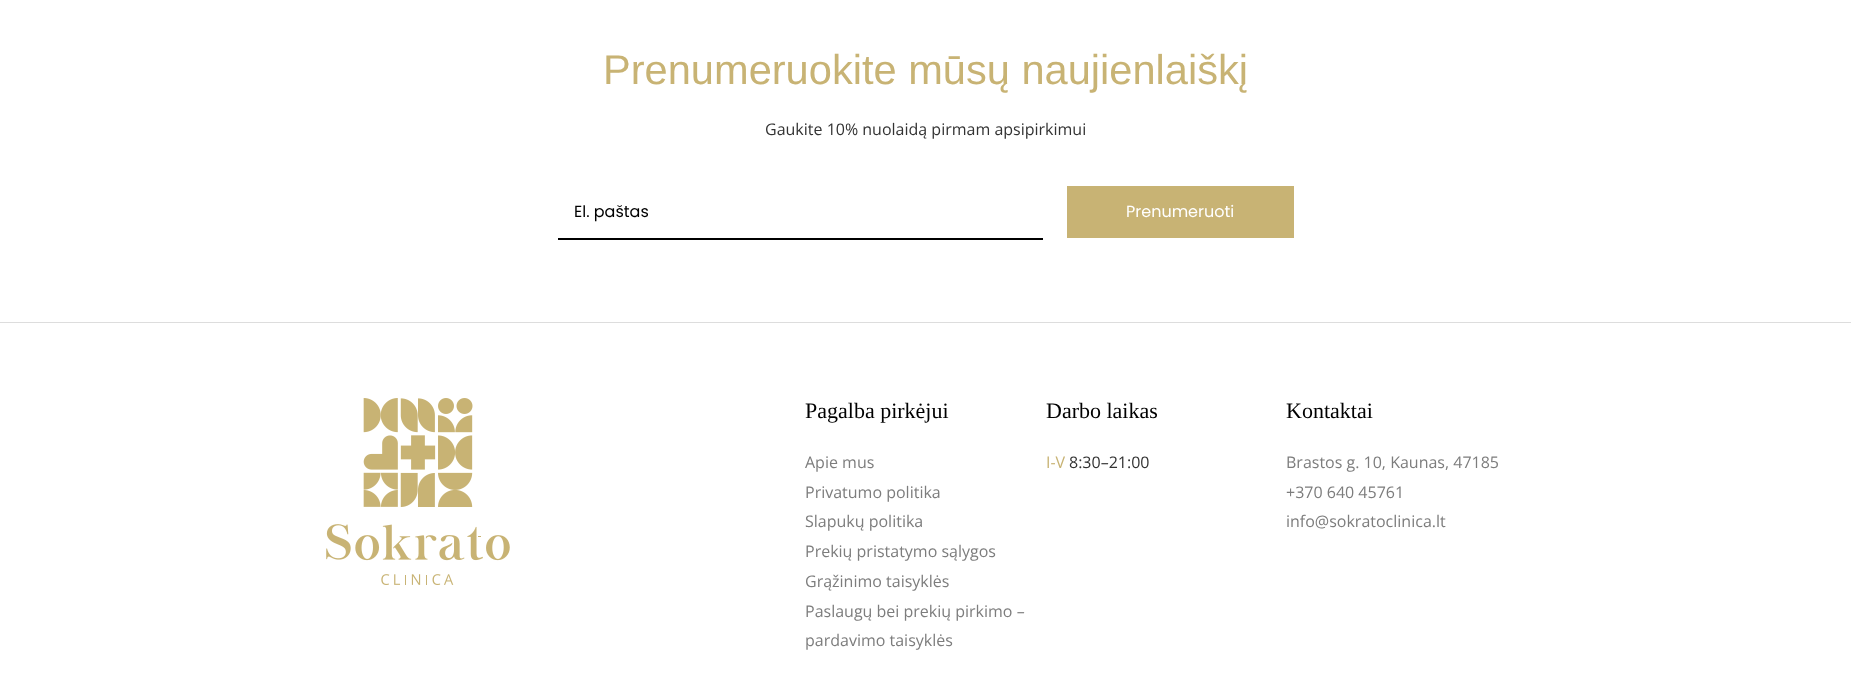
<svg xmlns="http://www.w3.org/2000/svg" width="1851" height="673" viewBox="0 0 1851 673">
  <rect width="100%" height="100%" fill="rgb(255,255,255)"/>
  <text x="603" y="84" font-family="Liberation Sans" font-size="41.6" fill="rgb(200,179,116)">Prenumeruokite mūsų naujienlaiškį</text>
  <text x="765" y="135" font-family="Open Sans" font-size="16" fill="rgb(51,51,51)">Gaukite 10% nuolaidą pirmam apsipirkimui</text>
  <rect x="558" y="238" width="485" height="2" fill="rgb(0,0,0)"/>
  <text x="574" y="217" font-family="Poppins" font-size="16" fill="rgb(0,0,0)">El. paštas</text>
  <rect x="1067" y="186" width="227" height="52" fill="rgb(200,179,116)"/>
  <text x="1126" y="217" font-family="Poppins" font-size="16" fill="rgb(255,255,255)">Prenumeruoti</text>
  <rect x="0" y="322" width="1851" height="1" fill="rgb(221,221,221)"/>
  <image x="326" y="398" width="184" height="187" href="pic1.png"/>
  <text x="805" y="418" font-family="Liberation Serif" font-size="22" fill="rgb(0,0,0)">Pagalba pirkėjui</text>
  <g font-family="Open Sans" font-size="16" fill="rgb(125,125,125)">
    <text>
      <tspan x="805" y="468">Apie mus</tspan>
      <tspan x="805" y="498">Privatumo politika</tspan>
      <tspan x="805" y="527">Slapukų politika</tspan>
      <tspan x="805" y="557">Prekių pristatymo sąlygos</tspan>
      <tspan x="805" y="587">Grąžinimo taisyklės</tspan>
      <tspan x="805" y="617">Paslaugų bei prekių pirkimo –</tspan>
      <tspan x="805" y="646">pardavimo taisyklės</tspan>
    </text>
  </g>
  <text x="1046" y="418" font-family="Liberation Serif" font-size="22" fill="rgb(0,0,0)">Darbo laikas</text>
  <text x="1046" y="468" font-family="Open Sans" font-size="16" fill="rgb(200,179,116)">I-V</text>
  <text x="1069" y="468" font-family="Open Sans" font-size="16" fill="rgb(51,51,51)">8:30–21:00</text>
  <text x="1286" y="418" font-family="Liberation Serif" font-size="22" fill="rgb(0,0,0)">Kontaktai</text>
  <g font-family="Open Sans" font-size="16" fill="rgb(125,125,125)">
    <text>
      <tspan x="1286" y="468">Brastos g. 10, Kaunas, 47185</tspan>
      <tspan x="1286" y="498">+370 640 45761</tspan>
      <tspan x="1286" y="527">info@sokratoclinica.lt</tspan>
    </text>
  </g>
</svg>
